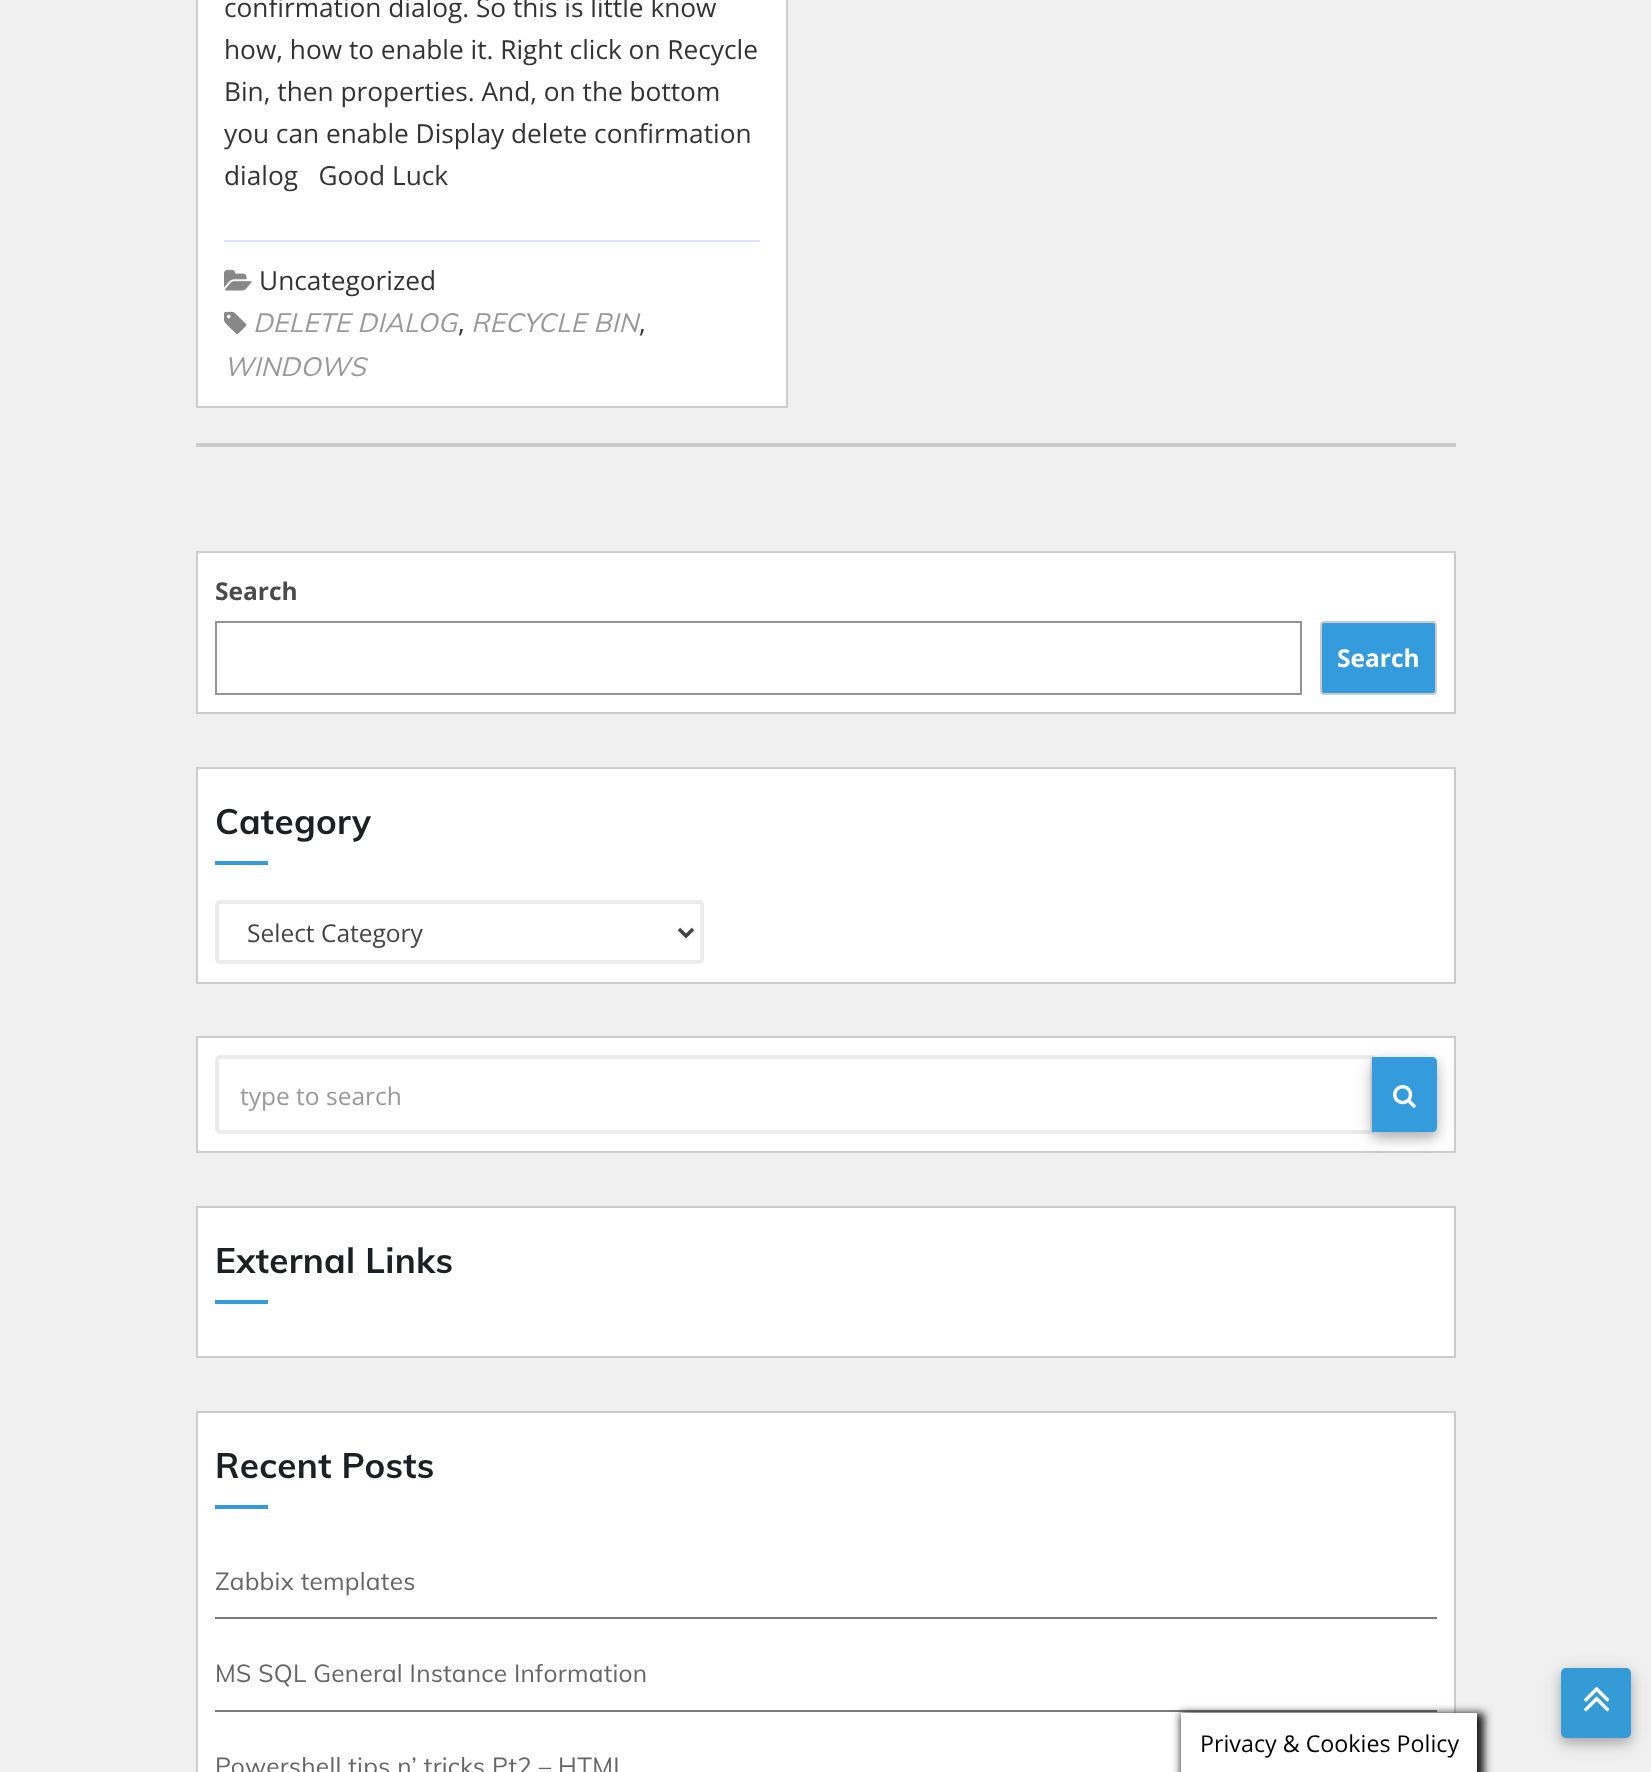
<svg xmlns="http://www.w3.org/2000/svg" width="1651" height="1772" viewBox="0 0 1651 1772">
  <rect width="100%" height="100%" fill="rgb(240,240,240)"/>
  <rect x="197" y="-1" width="590" height="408" fill="rgb(255,255,255)" stroke="rgb(204,204,204)" stroke-width="2"/>
  <g font-family="Open Sans" font-size="26.25" fill="rgb(51,51,51)">
    <text xml:space="preserve"><tspan x="224" y="17">confirmation dialog. So this is little know</tspan><tspan x="224" y="59">how, how to enable it. Right click on Recycle</tspan><tspan x="224" y="101">Bin, then properties. And, on the bottom</tspan><tspan x="224" y="143">you can enable Display delete confirmation</tspan><tspan x="224" y="185">dialog   Good Luck</tspan></text>
  </g>
  <rect x="224" y="240" width="536" height="2" fill="rgb(221,221,255)"/>
  <image x="224" y="269" width="28" height="22" href="pic1.png"/>
  <text x="259" y="290" font-family="Open Sans" font-size="26.25" fill="rgb(51,51,51)">Uncategorized</text>
  <image x="224" y="311" width="23" height="23" href="pic2.png"/>
  <text x="253" y="332" font-family="Muli" font-size="26.25" font-style="italic" letter-spacing="0.25" fill="rgb(153,153,153)">DELETE DIALOG</text>
  <text x="458" y="332" font-family="Open Sans" font-size="26.25" fill="rgb(51,51,51)">,</text>
  <text x="471" y="332" font-family="Muli" font-size="26.25" font-style="italic" letter-spacing="0.25" fill="rgb(153,153,153)">RECYCLE BIN</text>
  <text x="639" y="332" font-family="Open Sans" font-size="26.25" fill="rgb(51,51,51)">,</text>
  <text x="224" y="376" font-family="Muli" font-size="26.25" font-style="italic" letter-spacing="0.25" fill="rgb(153,153,153)">WINDOWS</text>
  <rect x="196" y="443" width="1260" height="4" fill="rgb(204,204,204)"/>
  <rect x="197" y="552" width="1258" height="161" fill="rgb(255,255,255)" stroke="rgb(204,204,204)" stroke-width="2"/>
  <text x="215" y="600" font-family="Open Sans" font-size="24.5" font-weight="bold" fill="rgb(74,74,74)">Search</text>
  <rect x="216" y="622" width="1085" height="72" fill="none" stroke="rgb(148,148,148)" stroke-width="2"/>
  <rect x="1321" y="622" width="115" height="72" rx="3" fill="rgb(52,155,220)" stroke="rgb(204,204,204)" stroke-width="2"/>
  <text x="1337" y="667" font-family="Open Sans" font-size="24.5" font-weight="bold" fill="rgb(255,255,255)">Search</text>
  <rect x="197" y="768" width="1258" height="215" fill="rgb(255,255,255)" stroke="rgb(204,204,204)" stroke-width="2"/>
  <text x="215" y="834" font-family="Muli" font-size="35" font-weight="bold" letter-spacing="0.3" fill="rgb(28,31,36)">Category</text>
  <rect x="215" y="861" width="53" height="4" fill="rgb(52,155,214)"/>
  <rect x="217" y="902" width="485" height="60" rx="3" fill="none" stroke="rgb(235,235,235)" stroke-width="4"/>
  <path d="M679 929L686 936L693 929" fill="none" stroke="rgb(68,68,68)" stroke-width="3.5"/>
  <text x="247" y="942" font-family="Open Sans" font-size="24.5" fill="rgb(68,68,68)">Select Category</text>
  <rect x="197" y="1037" width="1258" height="115" fill="rgb(255,255,255)" stroke="rgb(204,204,204)" stroke-width="2"/>
  <path d="M220 1057H1372V1132H220C218.5 1132 217 1130.5 217 1129V1060C217 1058.5 218.5 1057 220 1057Z" fill="none" stroke="rgb(235,235,235)" stroke-width="4"/>
  <text x="240" y="1105" font-family="Open Sans" font-size="24.5" fill="rgb(153,153,153)">type to search</text>
  <rect x="1372" y="1062" width="65" height="76" rx="5" fill="rgba(0,0,0,0.16)" filter="blur(5px)"/>
  <rect x="1372" y="1062" width="65" height="76" rx="5" fill="rgba(0,0,0,0.18)" filter="blur(9px)"/>
  <path d="M1372 1057H1432C1435 1057 1437 1059 1437 1062V1127C1437 1130 1435 1132 1432 1132H1372Z" fill="rgb(52,155,220)"/>
  <image x="1393" y="1085" width="23" height="23" href="pic3.png"/>
  <rect x="197" y="1207" width="1258" height="150" fill="rgb(255,255,255)" stroke="rgb(204,204,204)" stroke-width="2"/>
  <text x="215" y="1273" font-family="Muli" font-size="35" font-weight="bold" letter-spacing="0.3" fill="rgb(28,31,36)">External Links</text>
  <rect x="215" y="1300" width="53" height="4" fill="rgb(52,155,214)"/>
  <rect x="197" y="1412" width="1258" height="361" fill="rgb(255,255,255)" stroke="rgb(204,204,204)" stroke-width="2"/>
  <text x="215" y="1478" font-family="Muli" font-size="35" font-weight="bold" letter-spacing="0.3" fill="rgb(28,31,36)">Recent Posts</text>
  <rect x="215" y="1505" width="53" height="4" fill="rgb(52,155,214)"/>
  <rect x="215" y="1617" width="1222" height="2" fill="rgb(119,119,119)"/>
  <text x="215" y="1590" font-family="Muli" font-size="24.5" letter-spacing="0.25" fill="rgb(102,102,102)">Zabbix templates</text>
  <rect x="215" y="1710" width="1222" height="2" fill="rgb(119,119,119)"/>
  <g font-family="Muli" font-size="24.5" letter-spacing="0.25" fill="rgb(102,102,102)">
    <text x="215" y="1682">MS SQL General Instance Information</text>
    <text x="215" y="1775">Powershell tips n’ tricks Pt2 – HTML</text>
  </g>
  <rect x="1561" y="1673" width="70" height="70" rx="5" fill="rgba(0,0,0,0.16)" filter="blur(5px)"/>
  <rect x="1561" y="1673" width="70" height="70" rx="5" fill="rgba(0,0,0,0.18)" filter="blur(9px)"/>
  <rect x="1561" y="1668" width="70" height="70" rx="5" fill="rgb(52,155,214)"/>
  <image x="1584" y="1686" width="26" height="26" href="pic4.png"/>
  <rect x="1181" y="1713" width="303" height="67" fill="rgb(22,22,22)" filter="blur(4.5px)"/>
  <rect x="1181" y="1713" width="296" height="59" fill="rgb(255,255,255)"/>
  <text x="1200" y="1752" font-family="Open Sans" font-size="23.25" fill="rgb(0,0,0)">Privacy &amp; Cookies Policy</text>
</svg>
